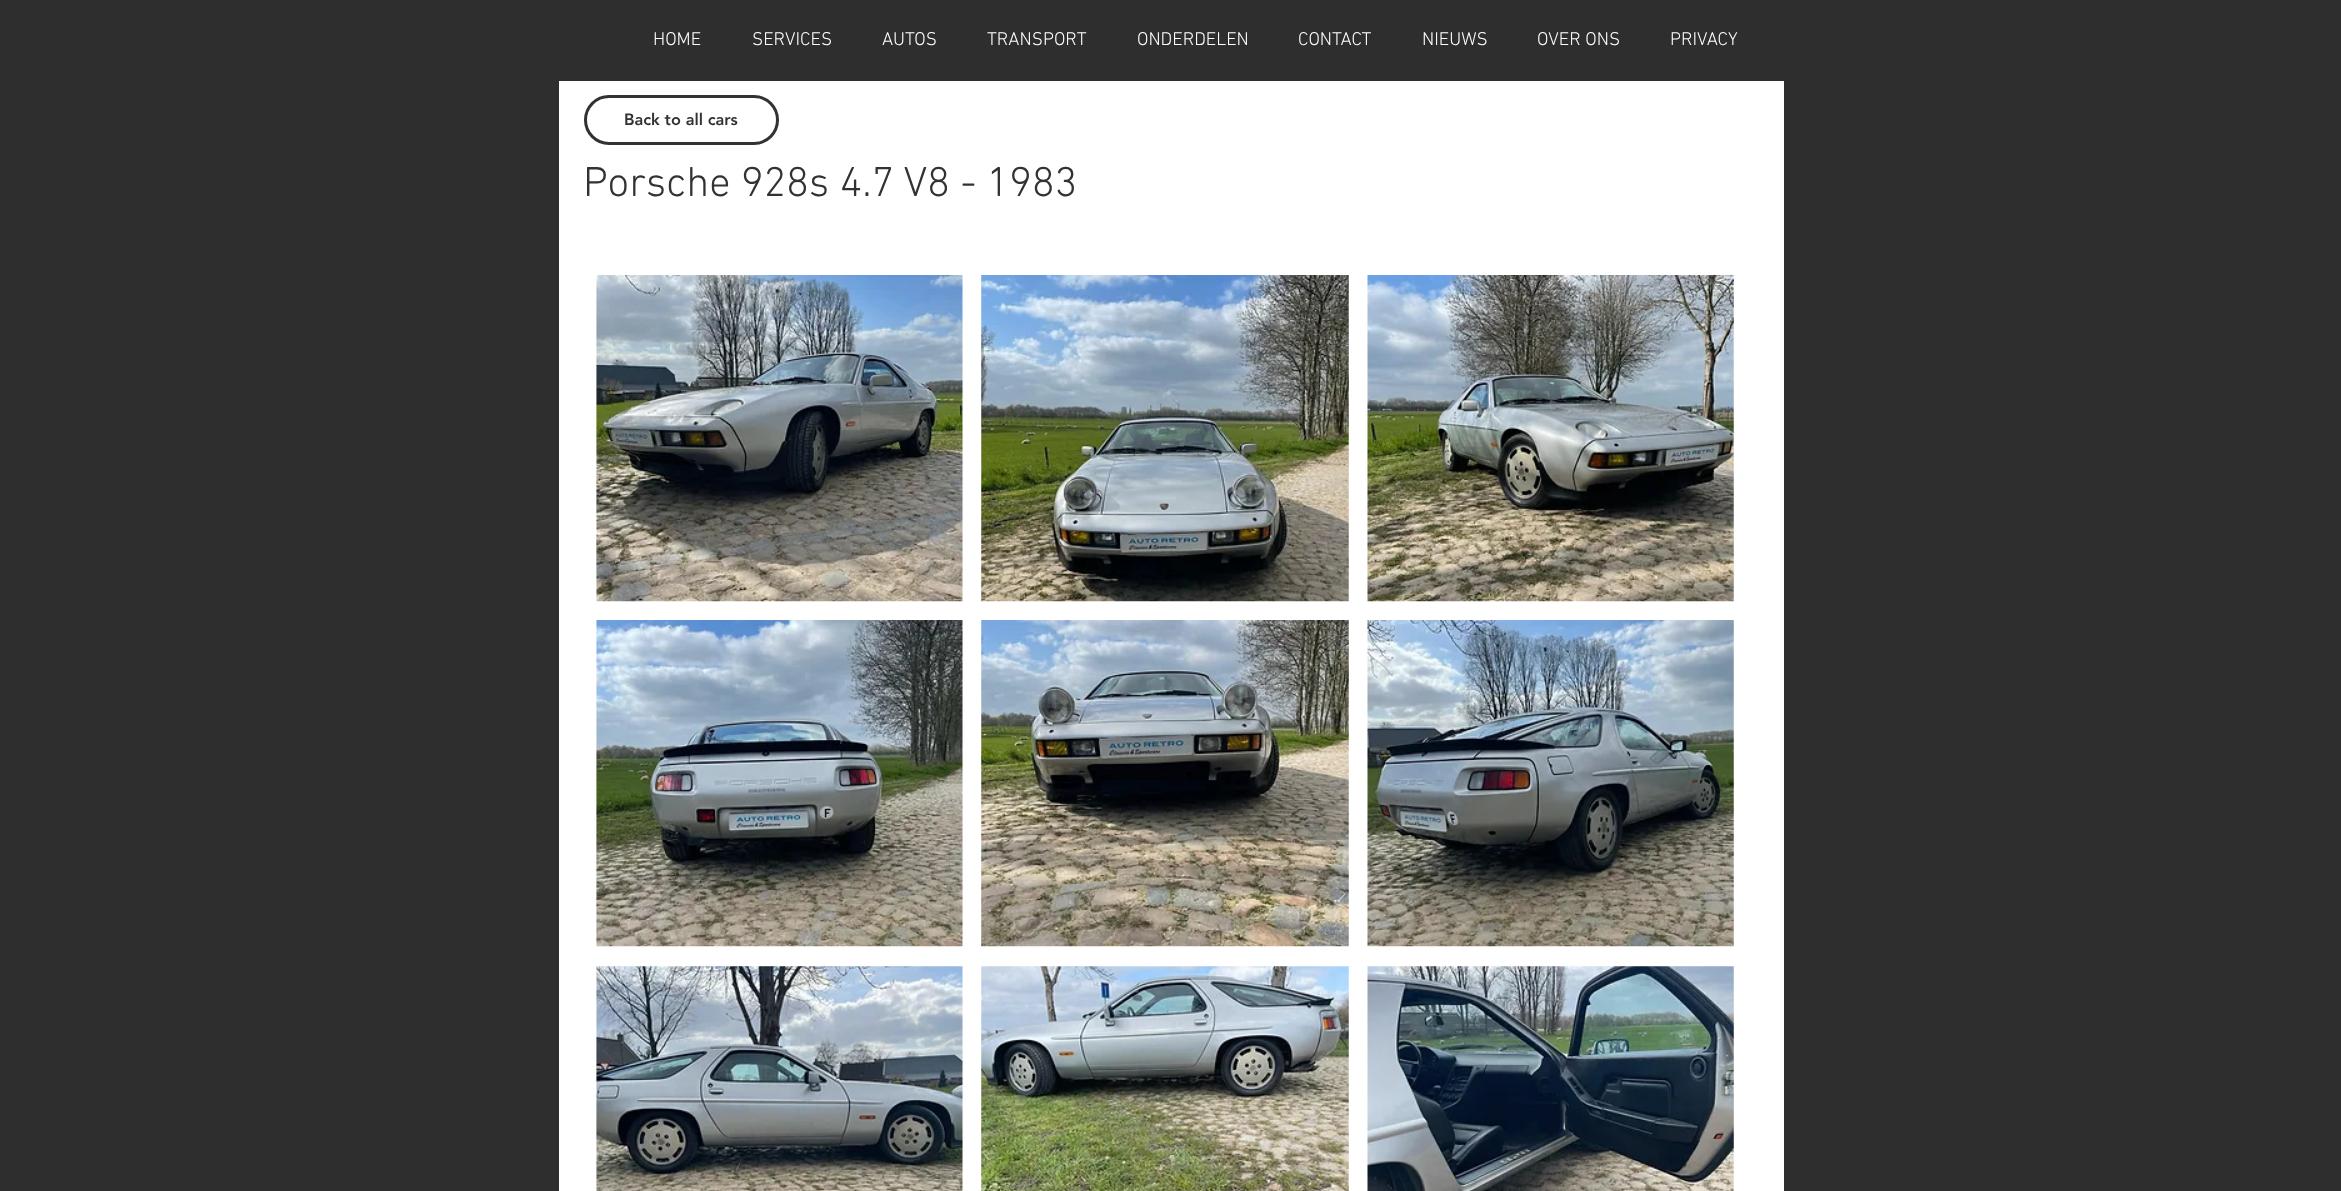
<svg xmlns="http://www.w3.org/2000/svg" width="2341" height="1191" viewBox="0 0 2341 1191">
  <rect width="100%" height="100%" fill="rgb(47,46,46)"/>
  <g font-family="'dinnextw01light'" font-size="18.75" font-weight="300" fill="rgb(255,255,255)">
    <text x="653" y="45">HOME</text>
    <text x="752" y="45">SERVICES</text>
    <text x="882" y="45">AUTOS</text>
    <text x="987" y="45">TRANSPORT</text>
    <text x="1137" y="45">ONDERDELEN</text>
    <text x="1298" y="45">CONTACT</text>
    <text x="1422" y="45">NIEUWS</text>
    <text x="1537" y="45">OVER ONS</text>
    <text x="1670" y="45">PRIVACY</text>
  </g>
  <rect x="559" y="81" width="1225" height="1110" fill="rgb(255,255,255)"/>
  <rect x="585.5" y="96.5" width="192" height="47" rx="23.5" fill="none" stroke="rgb(50,50,50)" stroke-width="3"/>
  <text x="624" y="125" font-family="'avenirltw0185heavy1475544'" font-size="16.25" font-weight="900" fill="rgb(50,50,50)">Back to all cars</text>
  <text x="583" y="196" font-family="'dinnextw01light'" font-size="42.5" font-weight="300" fill="rgb(50,50,50)">Porsche 928s 4.7 V8 - 1983</text>
  <image x="596" y="275" width="367" height="327" href="pic1.png"/>
  <image x="981" y="275" width="368" height="327" href="pic2.png"/>
  <image x="1367" y="275" width="367" height="327" href="pic3.png"/>
  <image x="596" y="620" width="367" height="327" href="pic4.png"/>
  <image x="981" y="620" width="368" height="327" href="pic5.png"/>
  <image x="1367" y="620" width="367" height="327" href="pic6.png"/>
  <image x="596" y="966" width="367" height="225" href="pic7.png"/>
  <image x="981" y="966" width="368" height="225" href="pic8.png"/>
  <image x="1367" y="966" width="367" height="225" href="pic9.png"/>
</svg>
